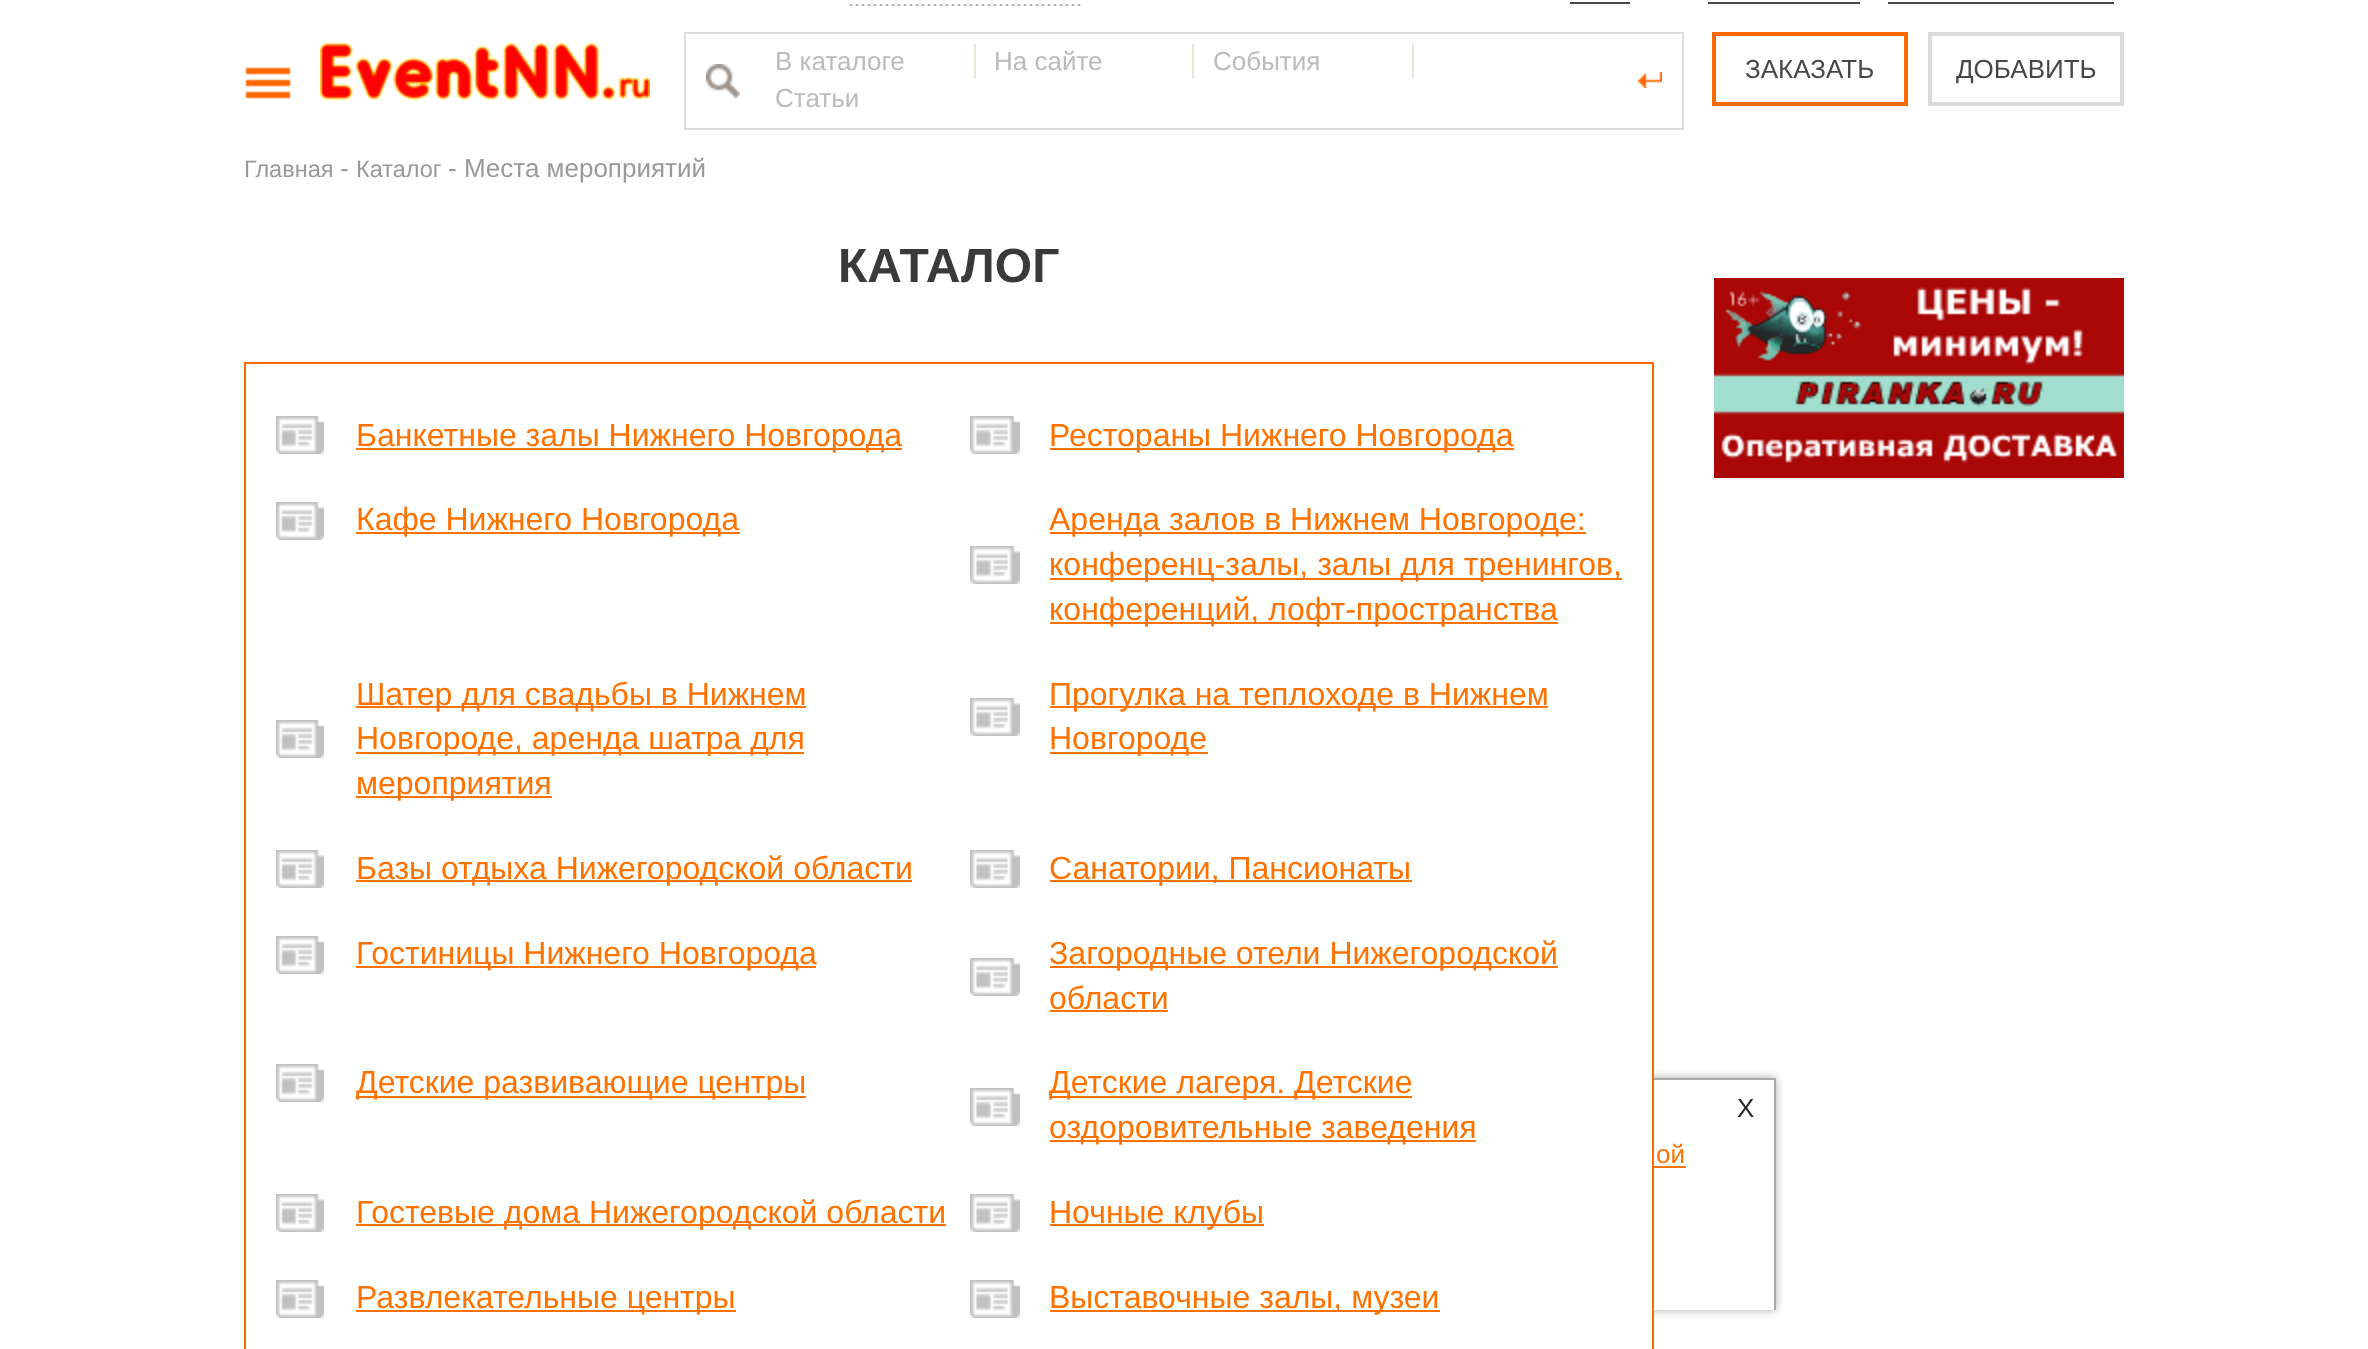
<svg xmlns="http://www.w3.org/2000/svg" width="2368" height="1349" viewBox="0 0 2368 1349">
  <defs>
    <clipPath id="clip1"><path d="M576 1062H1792V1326H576ZM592 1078H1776V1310H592Z" clip-rule="evenodd"/></clipPath>
  </defs>
  <rect width="100%" height="100%" fill="rgb(255,255,255)"/>
  <rect x="1570" y="2" width="60" height="2" fill="rgb(71,71,71)"/>
  <rect x="1708" y="2" width="152" height="2" fill="rgb(71,71,71)"/>
  <rect x="1888" y="2" width="226" height="2" fill="rgb(71,71,71)"/>
  <image x="850" y="4" width="231" height="2" href="pic1.png"/>
  <image x="245" y="67" width="46" height="32" href="pic2.png"/>
  <image x="320" y="41" width="330" height="59" href="pic3.png"/>
  <rect x="685" y="33" width="998" height="96" fill="none" stroke="rgb(221,221,221)" stroke-width="2"/>
  <rect x="974" y="44" width="2" height="34" fill="rgb(236,229,213)"/>
  <text x="775" y="70" font-family="Liberation Sans" font-size="26" fill="rgb(187,187,187)">В каталоге</text>
  <rect x="1192" y="44" width="2" height="34" fill="rgb(236,229,213)"/>
  <text x="994" y="70" font-family="Liberation Sans" font-size="26" fill="rgb(187,187,187)">На сайте</text>
  <rect x="1412" y="44" width="2" height="34" fill="rgb(236,229,213)"/>
  <text x="1213" y="70" font-family="Liberation Sans" font-size="26" fill="rgb(187,187,187)">События</text>
  <image x="706" y="64" width="34" height="34" href="pic4.png"/>
  <image x="1638" y="72" width="24" height="16" href="pic5.png"/>
  <text x="775" y="107" font-family="Liberation Sans" font-size="26" fill="rgb(187,187,187)">Статьи</text>
  <rect x="1714" y="34" width="192" height="70" fill="none" stroke="rgb(255,103,0)" stroke-width="4"/>
  <text x="1745" y="78" font-family="Liberation Sans" font-size="26" fill="rgb(71,71,72)">ЗАКАЗАТЬ</text>
  <rect x="1930" y="34" width="192" height="70" fill="none" stroke="rgb(219,219,219)" stroke-width="4"/>
  <text x="1956" y="78" font-family="Liberation Sans" font-size="26" fill="rgb(71,71,72)">ДОБАВИТЬ</text>
  <text x="244" y="177" font-family="Liberation Sans" font-size="23.5" fill="rgb(153,153,153)">Главная</text>
  <text x="340" y="177" font-family="Liberation Sans" font-size="26" fill="rgb(153,153,153)">-</text>
  <text x="356" y="177" font-family="Liberation Sans" font-size="23.5" fill="rgb(153,153,153)">Каталог</text>
  <text x="448" y="177" font-family="Liberation Sans" font-size="26" fill="rgb(153,153,153)">- Места мероприятий</text>
  <text x="838" y="282" font-family="Liberation Sans" font-size="48" font-weight="bold" fill="rgb(58,58,58)">КАТАЛОГ</text>
  <g clip-path="url(#clip1)">
    <rect x="592" y="1078" width="1184" height="232" fill="rgb(170,170,170)" filter="blur(5px)"/>
  </g>
  <rect x="583" y="1069" width="1069" height="250" fill="rgb(255,255,255)"/>
  <rect x="245" y="363" width="1408" height="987" fill="none" stroke="rgb(255,103,0)" stroke-width="2"/>
  <image x="276" y="416" width="48" height="38" href="pic6.png"/>
  <rect x="356" y="448" width="546" height="2" fill="rgb(255,114,0)"/>
  <text x="356" y="446" font-family="Liberation Sans" font-size="32" fill="rgb(255,114,0)">Банкетные залы Нижнего Новгорода</text>
  <image x="970" y="416" width="50" height="38" href="pic7.png"/>
  <rect x="1050" y="448" width="464" height="2" fill="rgb(255,114,0)"/>
  <text x="1049" y="446" font-family="Liberation Sans" font-size="32" fill="rgb(255,114,0)">Рестораны Нижнего Новгорода</text>
  <image x="276" y="502" width="48" height="38" href="pic6.png"/>
  <rect x="356" y="532" width="384" height="2" fill="rgb(255,114,0)"/>
  <text x="356" y="530" font-family="Liberation Sans" font-size="32" fill="rgb(255,114,0)">Кафе Нижнего Новгорода</text>
  <image x="970" y="546" width="50" height="38" href="pic7.png"/>
  <rect x="1050" y="532" width="536" height="2" fill="rgb(255,114,0)"/>
  <text x="1049" y="530" font-family="Liberation Sans" font-size="32" fill="rgb(255,114,0)">Аренда залов в Нижнем Новгороде:</text>
  <rect x="1050" y="578" width="572" height="2" fill="rgb(255,114,0)"/>
  <text x="1049" y="575" font-family="Liberation Sans" font-size="32" fill="rgb(255,114,0)">конференц-залы, залы для тренингов,</text>
  <rect x="1050" y="622" width="508" height="2" fill="rgb(255,114,0)"/>
  <text x="1049" y="620" font-family="Liberation Sans" font-size="32" fill="rgb(255,114,0)">конференций, лофт-пространства</text>
  <image x="276" y="720" width="48" height="38" href="pic6.png"/>
  <rect x="356" y="706" width="450" height="2" fill="rgb(255,114,0)"/>
  <text x="356" y="705" font-family="Liberation Sans" font-size="32" fill="rgb(255,114,0)">Шатер для свадьбы в Нижнем</text>
  <rect x="356" y="752" width="448" height="2" fill="rgb(255,114,0)"/>
  <text x="356" y="749" font-family="Liberation Sans" font-size="32" fill="rgb(255,114,0)">Новгороде, аренда шатра для</text>
  <rect x="356" y="796" width="196" height="2" fill="rgb(255,114,0)"/>
  <text x="356" y="794" font-family="Liberation Sans" font-size="32" fill="rgb(255,114,0)">мероприятия</text>
  <image x="970" y="698" width="50" height="38" href="pic7.png"/>
  <rect x="1050" y="706" width="498" height="2" fill="rgb(255,114,0)"/>
  <text x="1049" y="705" font-family="Liberation Sans" font-size="32" fill="rgb(255,114,0)">Прогулка на теплоходе в Нижнем</text>
  <rect x="1050" y="752" width="158" height="2" fill="rgb(255,114,0)"/>
  <text x="1049" y="749" font-family="Liberation Sans" font-size="32" fill="rgb(255,114,0)">Новгороде</text>
  <image x="276" y="850" width="48" height="38" href="pic6.png"/>
  <rect x="356" y="880" width="556" height="2" fill="rgb(255,114,0)"/>
  <text x="356" y="879" font-family="Liberation Sans" font-size="32" fill="rgb(255,114,0)">Базы отдыха Нижегородской области</text>
  <image x="970" y="850" width="50" height="38" href="pic7.png"/>
  <rect x="1050" y="880" width="362" height="2" fill="rgb(255,114,0)"/>
  <text x="1049" y="879" font-family="Liberation Sans" font-size="32" fill="rgb(255,114,0)">Санатории, Пансионаты</text>
  <image x="276" y="936" width="48" height="38" href="pic6.png"/>
  <rect x="356" y="966" width="460" height="2" fill="rgb(255,114,0)"/>
  <text x="356" y="964" font-family="Liberation Sans" font-size="32" fill="rgb(255,114,0)">Гостиницы Нижнего Новгорода</text>
  <image x="970" y="958" width="50" height="38" href="pic7.png"/>
  <rect x="1050" y="966" width="508" height="2" fill="rgb(255,114,0)"/>
  <g font-family="Liberation Sans" font-size="32" fill="rgb(255,114,0)">
    <text>
      <tspan x="1049" y="964">Загородные отели Нижегородской</tspan>
      <tspan x="1049" y="1009">области</tspan>
    </text>
  </g>
  <rect x="1050" y="1010" width="118" height="2" fill="rgb(255,114,0)"/>
  <image x="276" y="1064" width="48" height="38" href="pic6.png"/>
  <rect x="356" y="1096" width="450" height="2" fill="rgb(255,114,0)"/>
  <text x="356" y="1093" font-family="Liberation Sans" font-size="32" fill="rgb(255,114,0)">Детские развивающие центры</text>
  <image x="970" y="1088" width="50" height="38" href="pic7.png"/>
  <rect x="1050" y="1096" width="362" height="2" fill="rgb(255,114,0)"/>
  <text x="1049" y="1093" font-family="Liberation Sans" font-size="32" fill="rgb(255,114,0)">Детские лагеря. Детские</text>
  <rect x="1050" y="1140" width="426" height="2" fill="rgb(255,114,0)"/>
  <text x="1049" y="1138" font-family="Liberation Sans" font-size="32" fill="rgb(255,114,0)">оздоровительные заведения</text>
  <image x="276" y="1194" width="48" height="38" href="pic6.png"/>
  <rect x="356" y="1224" width="590" height="2" fill="rgb(255,114,0)"/>
  <text x="356" y="1223" font-family="Liberation Sans" font-size="32" fill="rgb(255,114,0)">Гостевые дома Нижегородской области</text>
  <image x="970" y="1194" width="50" height="38" href="pic7.png"/>
  <rect x="1050" y="1224" width="214" height="2" fill="rgb(255,114,0)"/>
  <text x="1049" y="1223" font-family="Liberation Sans" font-size="32" fill="rgb(255,114,0)">Ночные клубы</text>
  <image x="276" y="1280" width="48" height="38" href="pic6.png"/>
  <rect x="356" y="1310" width="380" height="2" fill="rgb(255,114,0)"/>
  <text x="356" y="1308" font-family="Liberation Sans" font-size="32" fill="rgb(255,114,0)">Развлекательные центры</text>
  <image x="970" y="1280" width="50" height="38" href="pic7.png"/>
  <rect x="1050" y="1310" width="390" height="2" fill="rgb(255,114,0)"/>
  <text x="1049" y="1308" font-family="Liberation Sans" font-size="32" fill="rgb(255,114,0)">Выставочные залы, музеи</text>
  <image x="1714" y="278" width="410" height="200" href="pic8.png"/>
  <rect x="1654" y="1078" width="122" height="2" fill="rgb(170,170,170)"/>
  <rect x="1774" y="1078" width="2" height="232" fill="rgb(170,170,170)"/>
  <text x="1737" y="1117" font-family="Liberation Sans" font-size="26" fill="rgb(40,40,40)">X</text>
  <text x="1656" y="1163" font-family="Liberation Sans" font-size="26" fill="rgb(255,114,0)">ой</text>
  <rect x="1654" y="1166" width="32" height="2" fill="rgb(255,114,0)"/>
</svg>
